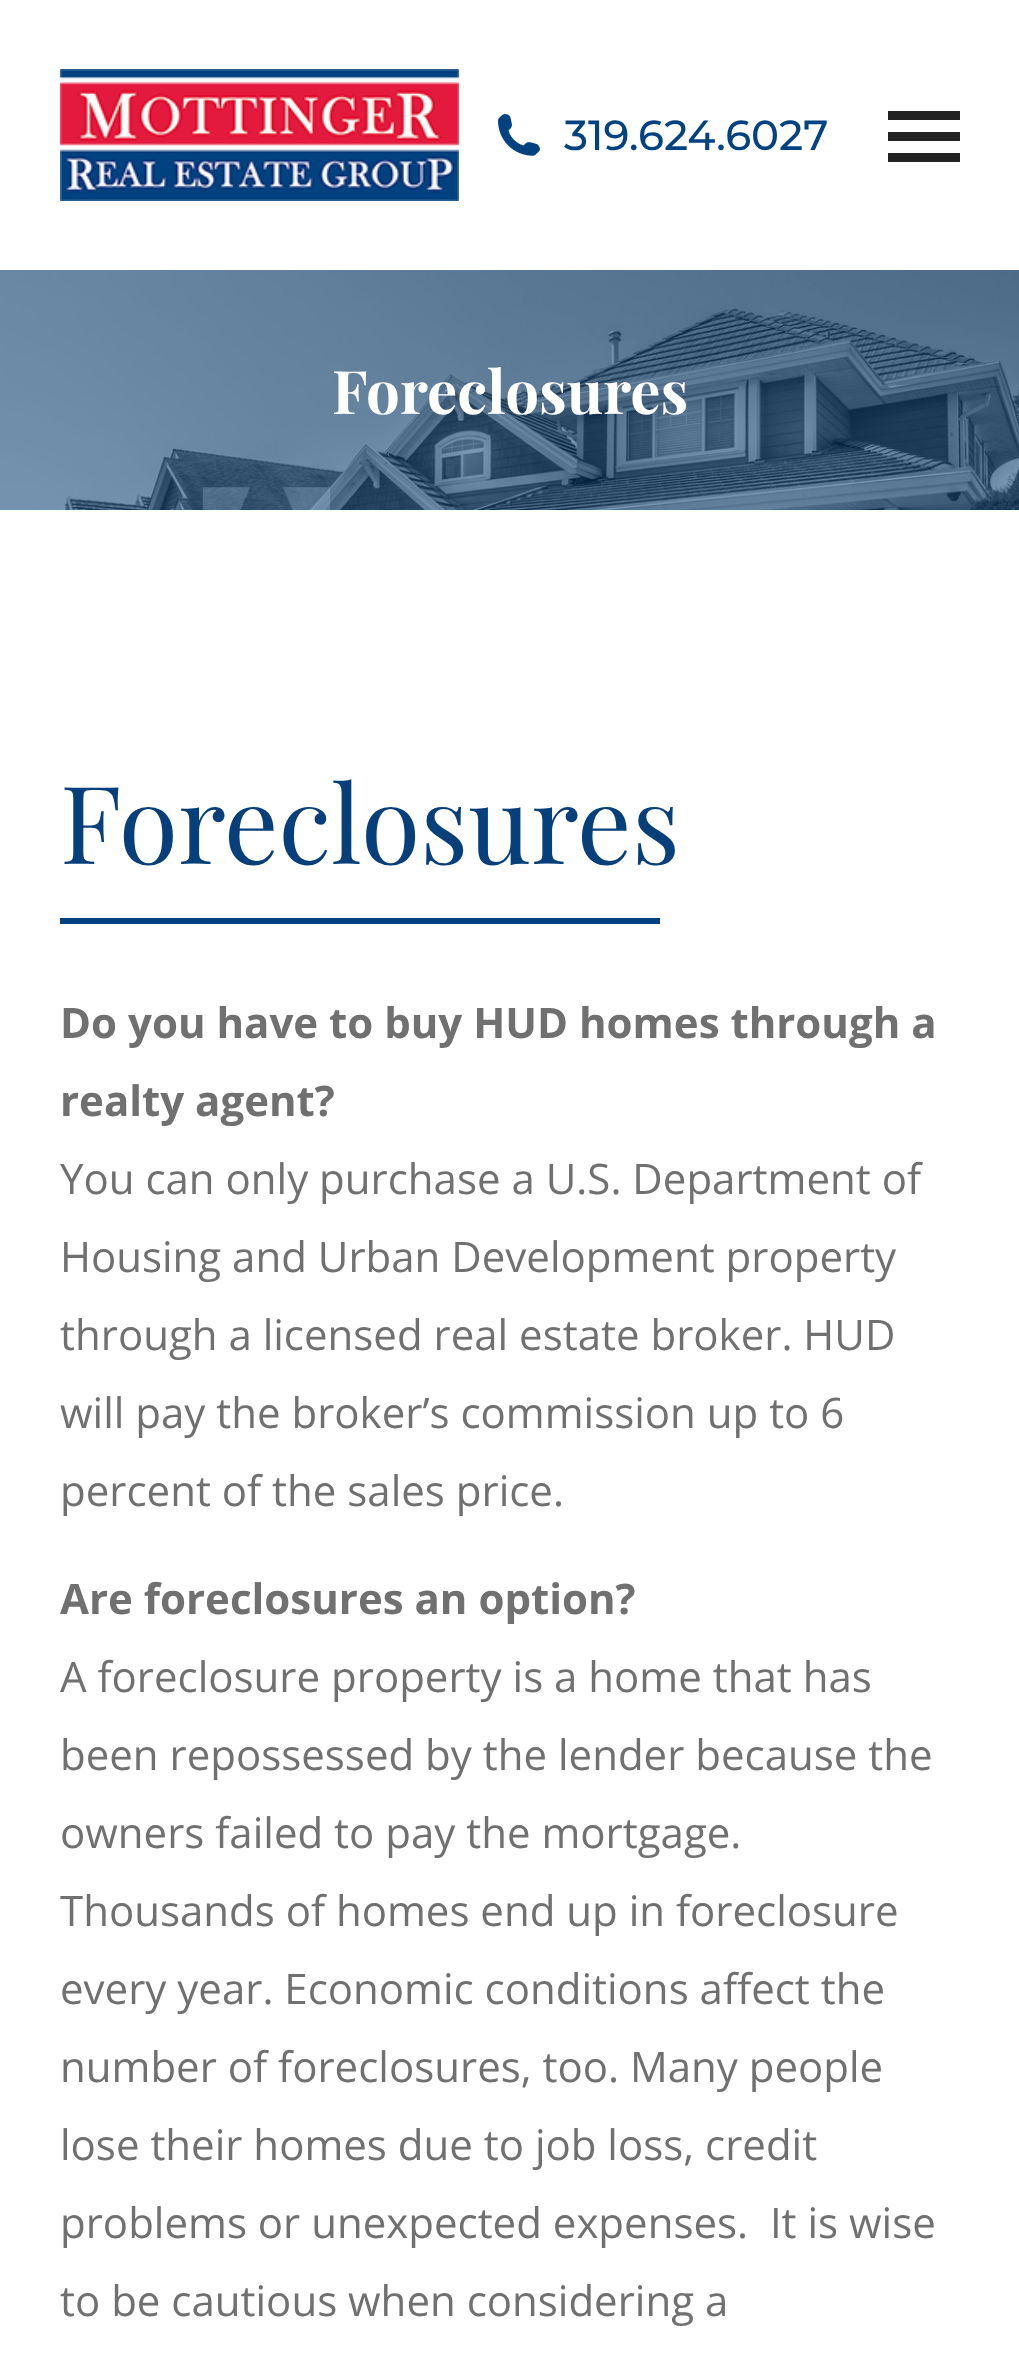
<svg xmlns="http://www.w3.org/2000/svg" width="1019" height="2359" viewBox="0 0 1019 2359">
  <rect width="100%" height="100%" fill="rgb(255,255,255)"/>
  <image x="60" y="69" width="399" height="132" href="pic1.png"/>
  <image x="498" y="114" width="42" height="42" href="pic2.png"/>
  <text x="564" y="150" font-family="Montserrat" font-size="42" font-weight="500" fill="rgb(2,66,128)">319.624.6027</text>
  <rect x="888" y="111" width="72" height="9" fill="rgb(34,34,34)"/>
  <rect x="888" y="132" width="72" height="9" fill="rgb(34,34,34)"/>
  <rect x="888" y="153" width="72" height="9" fill="rgb(34,34,34)"/>
  <image x="0" y="270" width="1019" height="240" href="pic3.png"/>
  <text x="332" y="414" font-family="Playfair Display" font-size="60" font-weight="bold" fill="rgb(255,255,255)">Foreclosures</text>
  <text x="60" y="864" font-family="Playfair Display" font-size="108" fill="rgb(7,63,122)">Foreclosures</text>
  <rect x="60" y="918" width="600" height="6" fill="rgb(2,66,128)"/>
  <g font-family="Open Sans" font-size="42" font-weight="bold" fill="rgb(112,112,112)">
    <text>
      <tspan x="60" y="1038">Do you have to buy HUD homes through a</tspan>
      <tspan x="60" y="1116">realty agent?</tspan>
    </text>
  </g>
  <g font-family="Open Sans" font-size="42" fill="rgb(112,112,112)">
    <text>
      <tspan x="60" y="1194">You can only purchase a U.S. Department of</tspan>
      <tspan x="60" y="1272">Housing and Urban Development property</tspan>
      <tspan x="60" y="1350">through a licensed real estate broker. HUD</tspan>
      <tspan x="60" y="1428">will pay the broker’s commission up to 6</tspan>
      <tspan x="60" y="1506">percent of the sales price.</tspan>
    </text>
  </g>
  <text x="60" y="1614" font-family="Open Sans" font-size="42" font-weight="bold" fill="rgb(112,112,112)">Are foreclosures an option?</text>
  <g font-family="Open Sans" font-size="42" fill="rgb(112,112,112)">
    <text xml:space="preserve"><tspan x="60" y="1692">A foreclosure property is a home that has</tspan><tspan x="60" y="1770">been repossessed by the lender because the</tspan><tspan x="60" y="1848">owners failed to pay the mortgage.</tspan><tspan x="60" y="1926">Thousands of homes end up in foreclosure</tspan><tspan x="60" y="2004">every year. Economic conditions affect the</tspan><tspan x="60" y="2082">number of foreclosures, too. Many people</tspan><tspan x="60" y="2160">lose their homes due to job loss, credit</tspan><tspan x="60" y="2238">problems or unexpected expenses.  It is wise</tspan><tspan x="60" y="2316">to be cautious when considering a</tspan></text>
  </g>
</svg>
